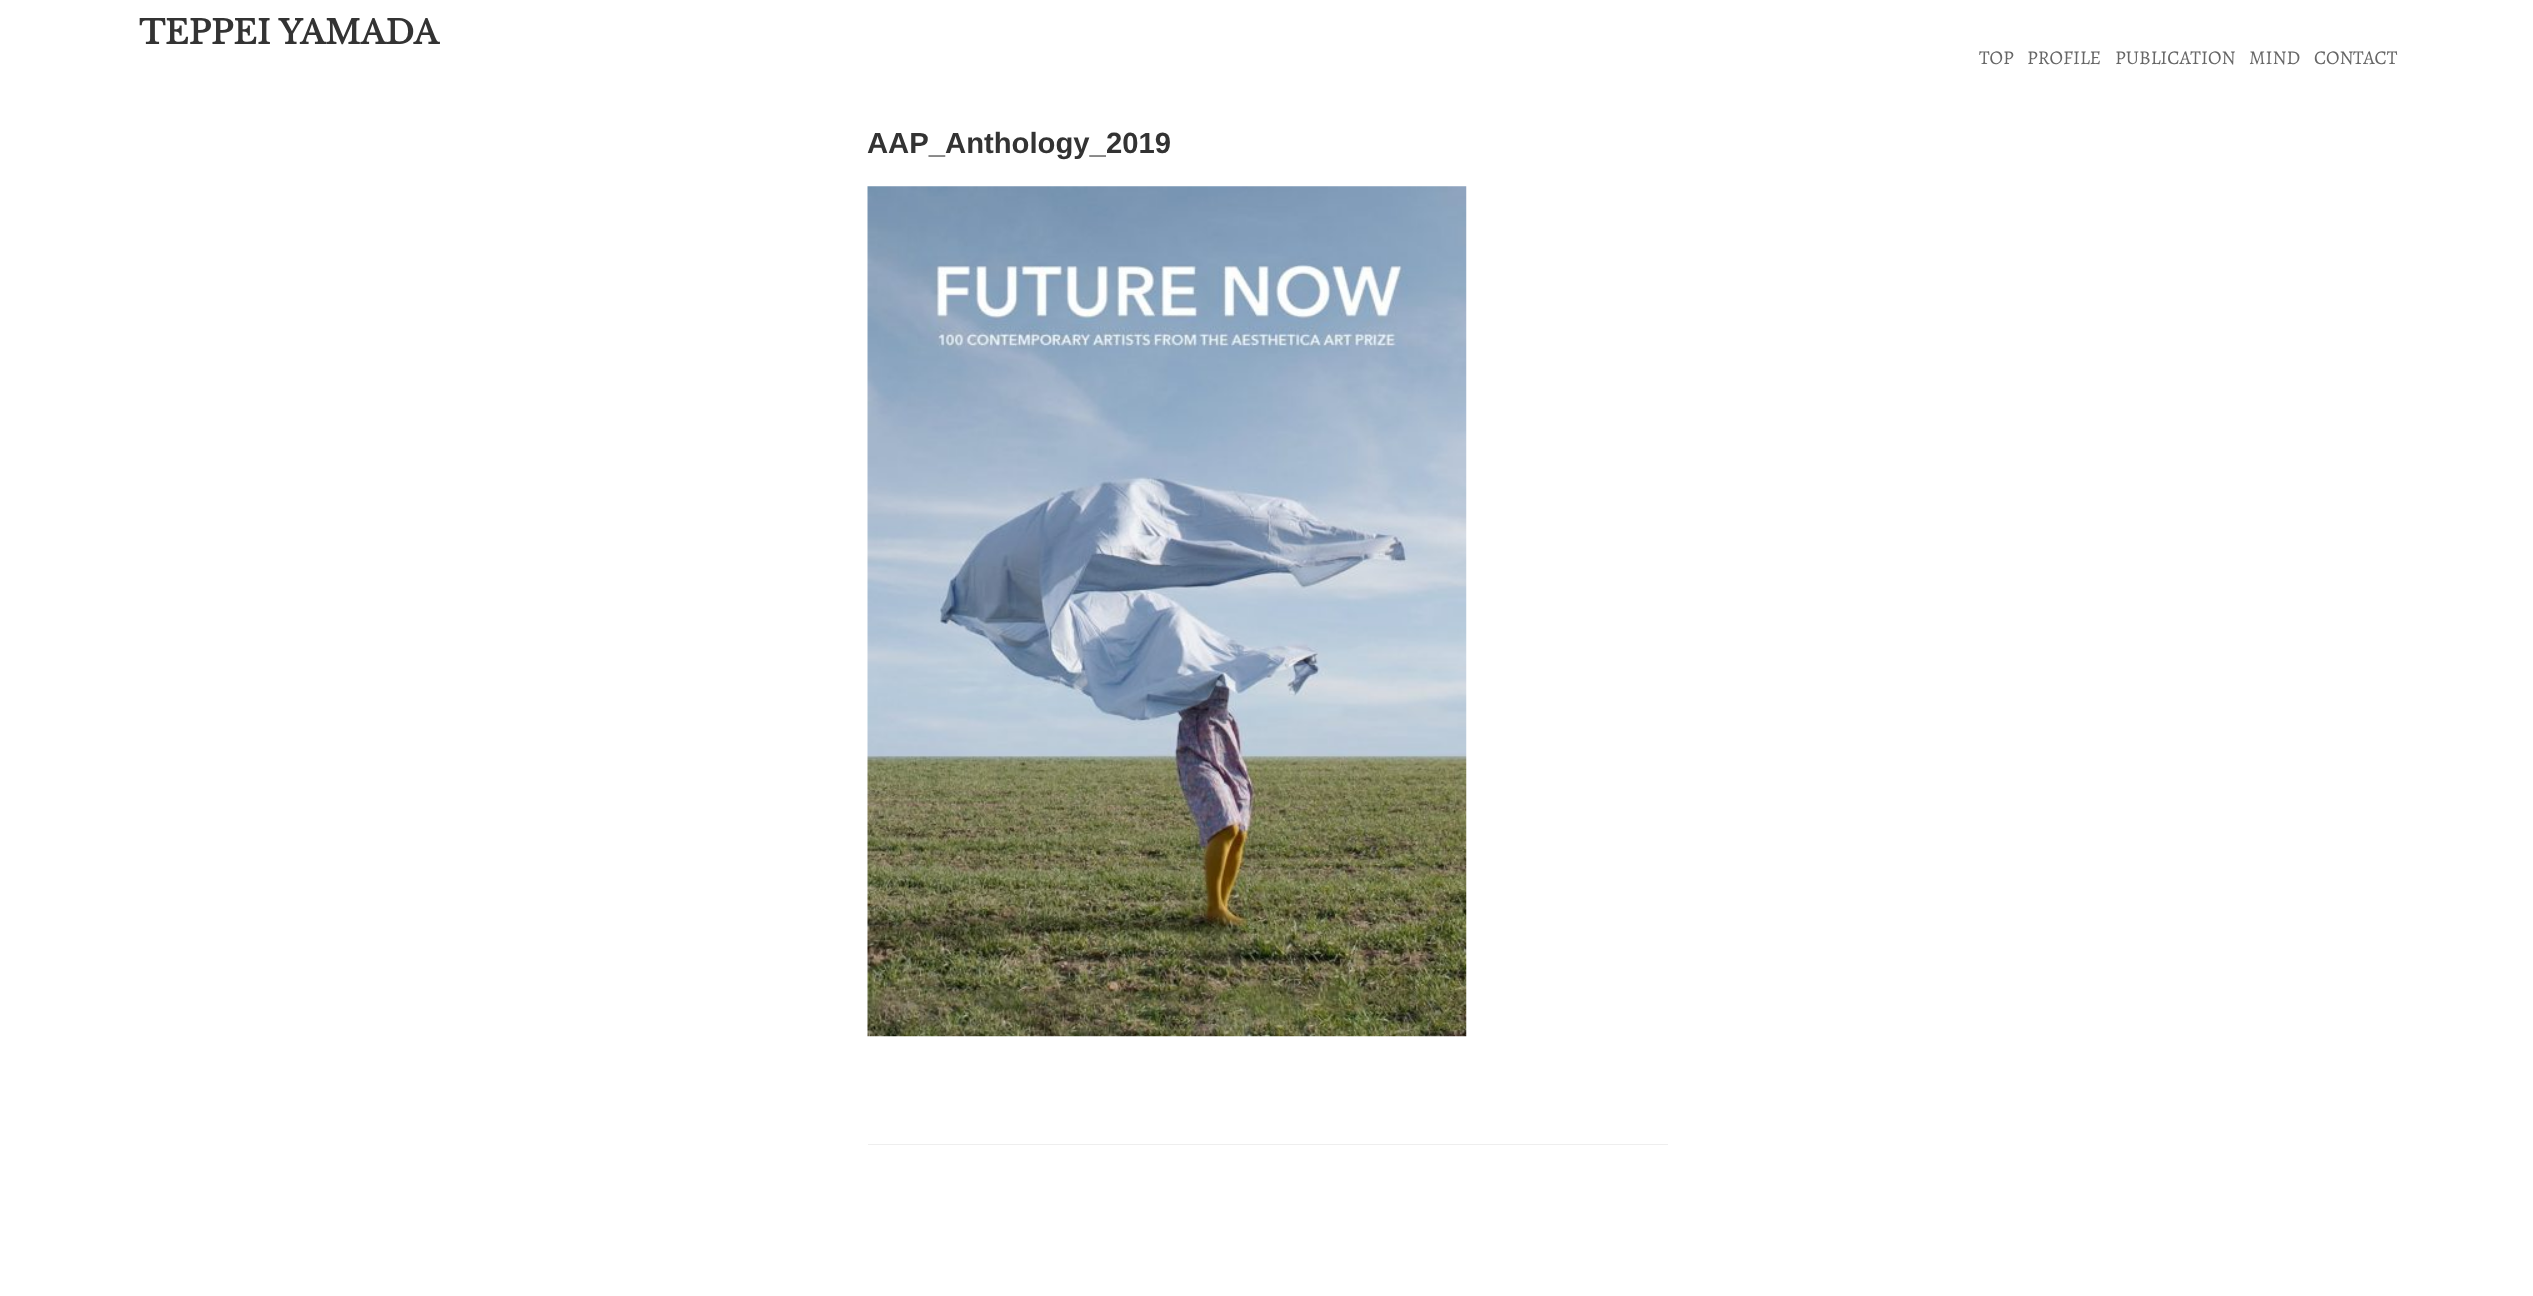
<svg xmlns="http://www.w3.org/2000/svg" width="2533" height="1296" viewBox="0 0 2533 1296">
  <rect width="100%" height="100%" fill="rgb(255,255,255)"/>
  <text x="139" y="44" font-family="Libre Baskerville" font-size="32.5" font-weight="bold" fill="rgb(51,51,51)">TEPPEI YAMADA</text>
  <g font-family="Alegreya" font-size="19.5" fill="rgb(102,102,102)">
    <text x="1979" y="64">TOP</text>
    <text x="2027" y="64">PROFILE</text>
    <text x="2115" y="64">PUBLICATION</text>
    <text x="2249" y="64">MIND</text>
    <text x="2314" y="64">CONTACT</text>
  </g>
  <text x="867" y="153" font-family="Liberation Sans" font-size="29.25" font-weight="bold" fill="rgb(51,51,51)">AAP_Anthology_2019</text>
  <image x="867" y="186" width="600" height="851" href="pic1.png"/>
  <rect x="868" y="1144" width="800" height="1" fill="rgb(238,238,238)"/>
</svg>
